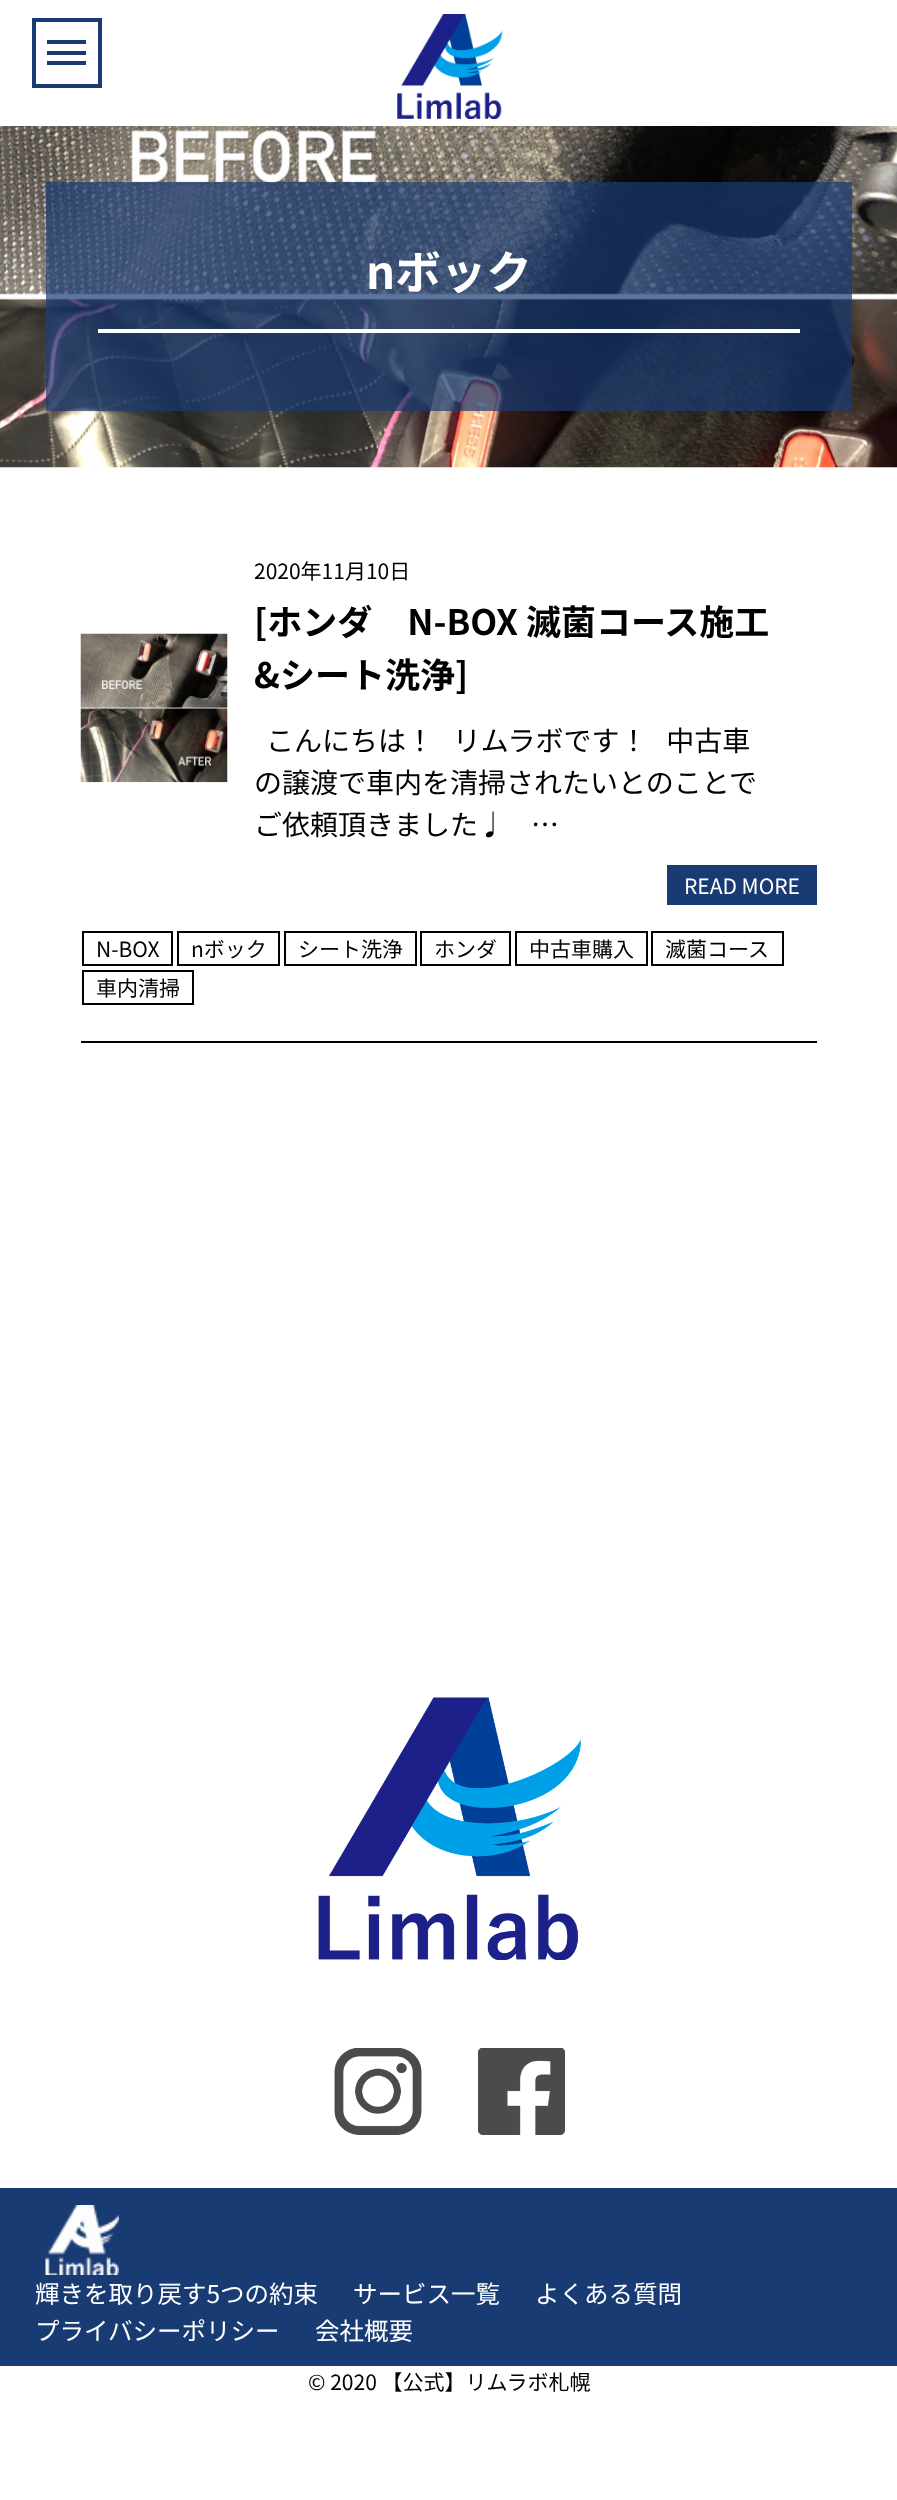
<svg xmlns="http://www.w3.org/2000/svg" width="897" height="2500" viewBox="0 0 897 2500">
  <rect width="100%" height="100%" fill="rgb(255,255,255)"/>
  <rect x="34" y="20" width="66" height="66" fill="none" stroke="rgb(25,59,115)" stroke-width="4"/>
  <rect x="47" y="51" width="39" height="4" fill="rgb(25,59,115)"/>
  <rect x="47" y="40" width="39" height="4" fill="rgb(25,59,115)"/>
  <rect x="47" y="61" width="39" height="4" fill="rgb(25,59,115)"/>
  <image x="397" y="14" width="106" height="105" href="pic1.png"/>
  <image x="0" y="126" width="897" height="342" href="pic2.png"/>
  <rect x="46" y="182" width="806" height="229" fill="rgba(25,59,115,0.7)"/>
  <rect x="98" y="329" width="702" height="4" fill="rgb(255,255,255)"/>
  <text x="366" y="289" font-family="Noto Sans JP" font-size="45.5" font-weight="bold" fill="rgb(255,255,255)">nボック</text>
  <rect x="81" y="1041" width="736" height="2" fill="rgb(0,0,0)"/>
  <image x="80" y="633" width="148" height="150" href="pic3.png"/>
  <text x="254" y="579" font-family="Noto Sans JP" font-size="21" fill="rgb(0,0,0)">2020年11月10日</text>
  <g font-family="Noto Sans JP" font-size="35" font-weight="bold" fill="rgb(0,0,0)">
    <text>
      <tspan x="254" y="635">[ホンダ　N-BOX 滅菌コース施工</tspan>
      <tspan x="254" y="688">&amp;シート洗浄]</tspan>
    </text>
  </g>
  <g font-family="Noto Sans JP" font-size="28" fill="rgb(0,0,0)">
    <text x="266" y="751" xml:space="preserve">こんにちは！   リムラボです！   中古車</text>
    <text xml:space="preserve"><tspan x="254" y="793">の譲渡で車内を清掃されたいとのことで</tspan><tspan x="254" y="835">ご依頼頂きました♩    …</tspan></text>
  </g>
  <rect x="667" y="865" width="150" height="40" fill="rgb(25,59,115)"/>
  <text x="684" y="894" font-family="Noto Sans JP" font-size="21" fill="rgb(255,255,255)">READ MORE</text>
  <rect x="83" y="932" width="89" height="33" fill="none" stroke="rgb(0,0,0)" stroke-width="2"/>
  <text x="96" y="957" font-family="Noto Sans JP" font-size="21" fill="rgb(0,0,0)">N-BOX</text>
  <rect x="178" y="932" width="101" height="33" fill="none" stroke="rgb(0,0,0)" stroke-width="2"/>
  <text x="191" y="957" font-family="Noto Sans JP" font-size="21" fill="rgb(0,0,0)">nボック</text>
  <rect x="285" y="932" width="131" height="33" fill="none" stroke="rgb(0,0,0)" stroke-width="2"/>
  <text x="298" y="957" font-family="Noto Sans JP" font-size="21" fill="rgb(0,0,0)">シート洗浄</text>
  <rect x="421" y="932" width="89" height="33" fill="none" stroke="rgb(0,0,0)" stroke-width="2"/>
  <text x="434" y="957" font-family="Noto Sans JP" font-size="21" fill="rgb(0,0,0)">ホンダ</text>
  <rect x="516" y="932" width="131" height="33" fill="none" stroke="rgb(0,0,0)" stroke-width="2"/>
  <text x="529" y="957" font-family="Noto Sans JP" font-size="21" fill="rgb(0,0,0)">中古車購入</text>
  <rect x="652" y="932" width="131" height="33" fill="none" stroke="rgb(0,0,0)" stroke-width="2"/>
  <text x="665" y="957" font-family="Noto Sans JP" font-size="21" fill="rgb(0,0,0)">滅菌コース</text>
  <rect x="83" y="971" width="110" height="33" fill="none" stroke="rgb(0,0,0)" stroke-width="2"/>
  <text x="96" y="996" font-family="Noto Sans JP" font-size="21" fill="rgb(0,0,0)">車内清掃</text>
  <image x="318" y="1697" width="263" height="263" href="pic4.png"/>
  <image x="334" y="2048" width="88" height="87" href="pic5.png"/>
  <image x="478" y="2048" width="87" height="87" href="pic6.png"/>
  <rect x="0" y="2188" width="897" height="178" fill="rgb(25,59,115)"/>
  <image x="45" y="2205" width="74" height="70" href="pic7.png"/>
  <g font-family="Noto Sans JP" font-size="24.5" fill="rgb(255,255,255)">
    <text x="35" y="2303">輝きを取り戻す5つの約束</text>
    <text x="353" y="2303">サービス一覧</text>
    <text x="535" y="2303">よくある質問</text>
    <text x="35" y="2340">プライバシーポリシー</text>
    <text x="315" y="2340">会社概要</text>
  </g>
  <text x="308" y="2390" font-family="Noto Sans JP" font-size="21" fill="rgb(0,0,0)">© 2020 【公式】リムラボ札幌</text>
</svg>
